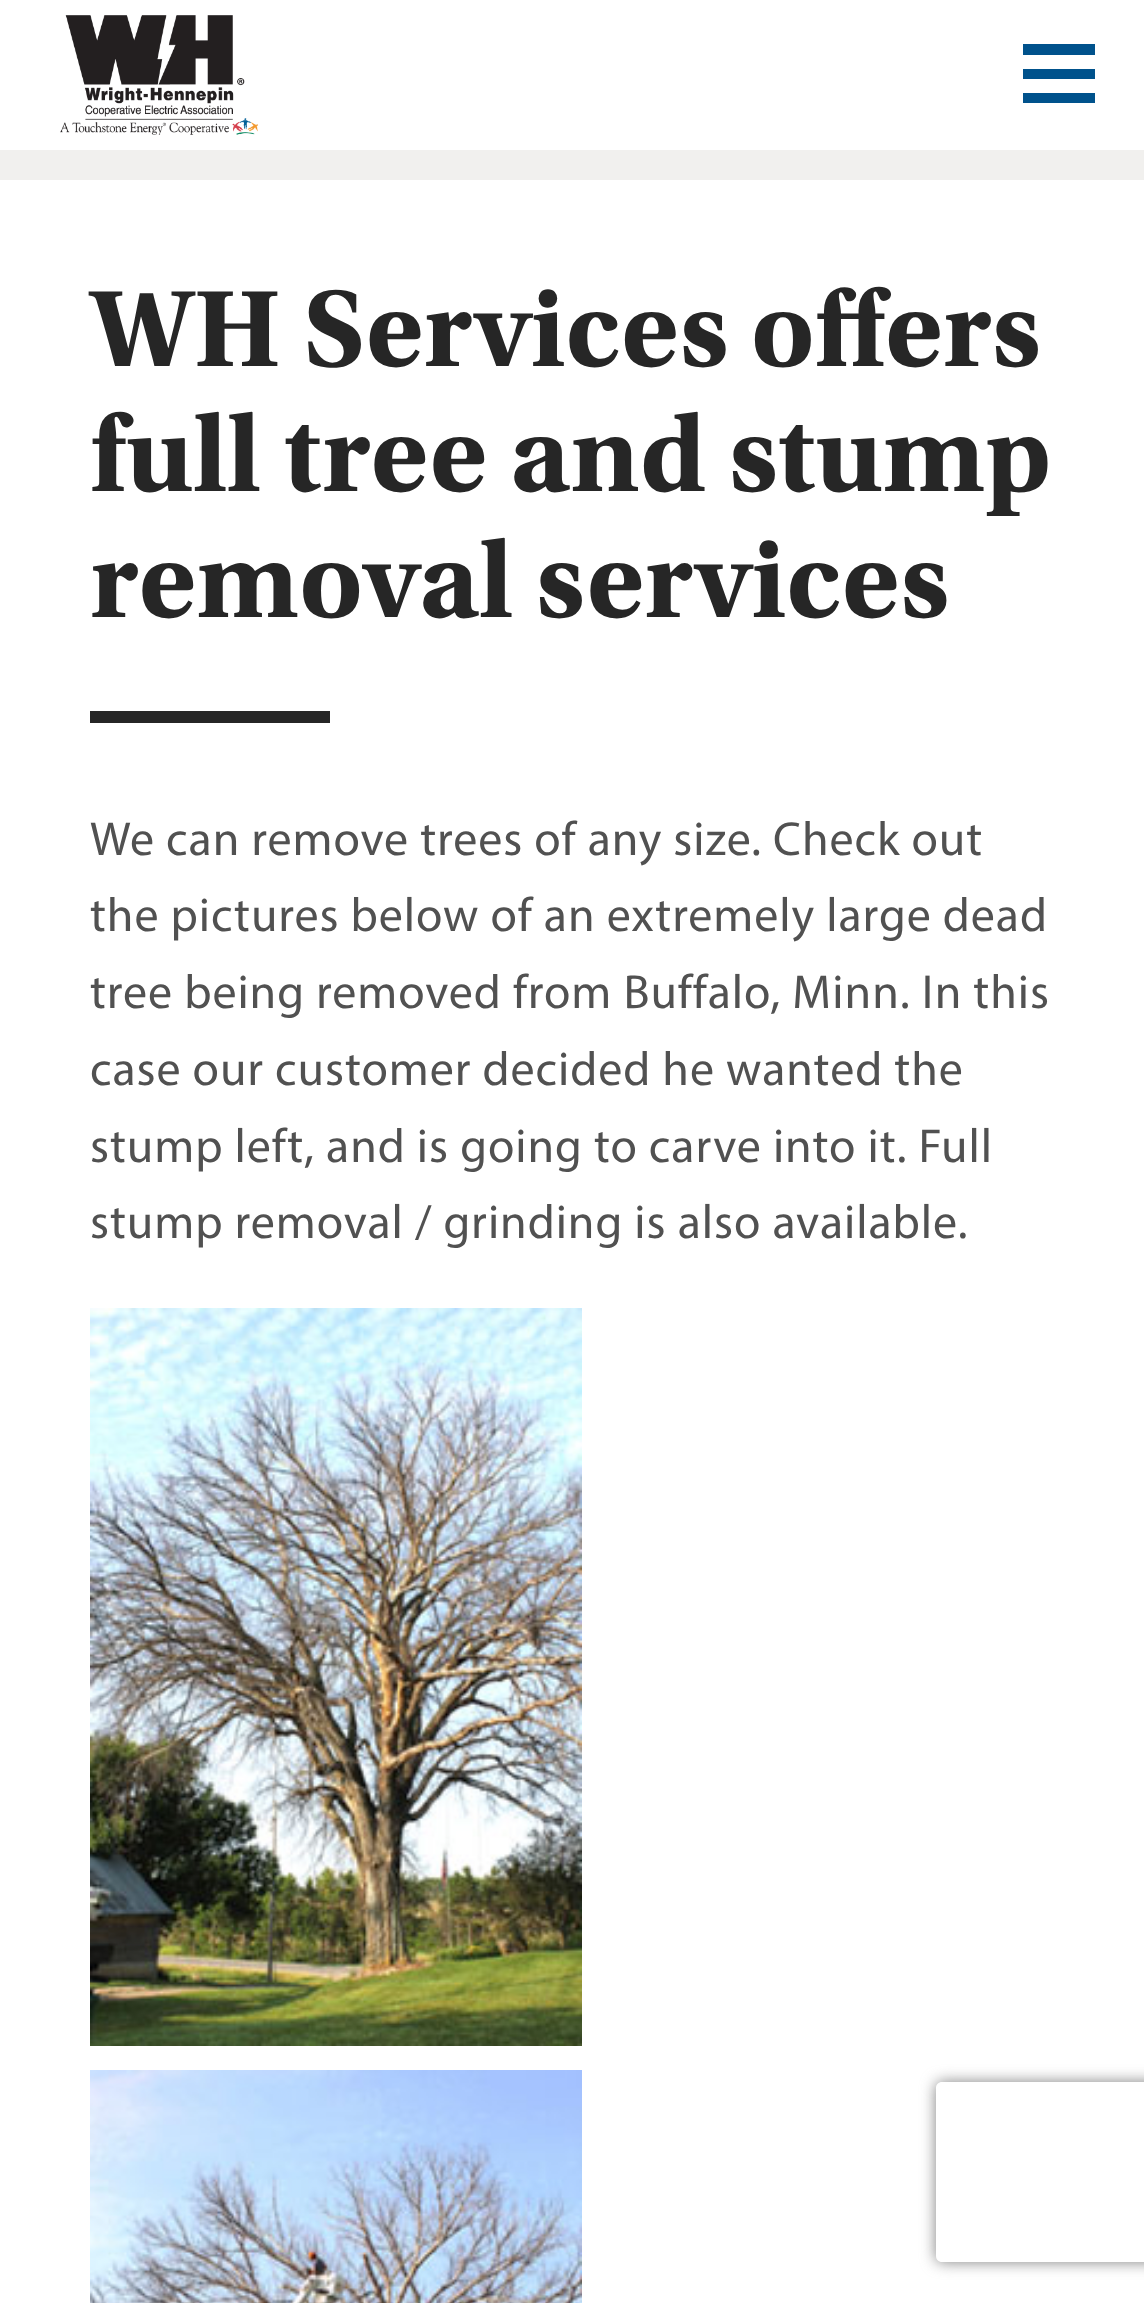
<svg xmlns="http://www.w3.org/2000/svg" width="1144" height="2303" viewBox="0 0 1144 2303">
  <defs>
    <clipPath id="clip1"><path d="M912 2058H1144V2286H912ZM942 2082H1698C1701.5 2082 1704 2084.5 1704 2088V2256C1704 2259.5 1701.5 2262 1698 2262H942C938.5 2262 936 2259.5 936 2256V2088C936 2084.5 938.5 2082 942 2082Z" clip-rule="evenodd"/></clipPath>
  </defs>
  <rect width="100%" height="100%" fill="rgb(241,240,238)"/>
  <rect x="0" y="0" width="1144" height="150" fill="rgb(255,255,255)"/>
  <image x="60" y="15" width="198" height="120" href="pic1.png"/>
  <path d="M1023 44H1095V55H1023ZM1023 69H1095V79H1023ZM1023 93H1095V103H1023Z" fill="rgb(0,82,140)"/>
  <rect x="0" y="180" width="1144" height="2123" fill="rgb(255,255,255)"/>
  <g font-family="Utopia" font-size="114" font-weight="bold" fill="rgb(38,38,38)">
    <text>
      <tspan x="90" y="366">WH Services offers</tspan>
      <tspan x="90" y="491">full tree and stump</tspan>
      <tspan x="90" y="617">removal services</tspan>
    </text>
  </g>
  <rect x="90" y="711" width="240" height="12" fill="rgb(38,38,38)"/>
  <g font-family="Myriad" font-size="48" letter-spacing="0.95" fill="rgb(81,81,81)">
    <text>
      <tspan x="90" y="855">We can remove trees of any size. Check out</tspan>
      <tspan x="90" y="931">the pictures below of an extremely large dead</tspan>
      <tspan x="90" y="1008">tree being removed from Buffalo, Minn. In this</tspan>
      <tspan x="90" y="1085">case our customer decided he wanted the</tspan>
      <tspan x="90" y="1162">stump left, and is going to carve into it. Full</tspan>
      <tspan x="90" y="1238">stump removal / grinding is also available.</tspan>
    </text>
  </g>
  <image x="90" y="1308" width="492" height="738" href="pic2.png"/>
  <image x="90" y="2070" width="492" height="233" href="pic3.png"/>
  <g clip-path="url(#clip1)">
    <rect x="936" y="2082" width="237" height="180" rx="6" fill="rgb(128,128,128)" filter="blur(7.5px)"/>
  </g>
</svg>
